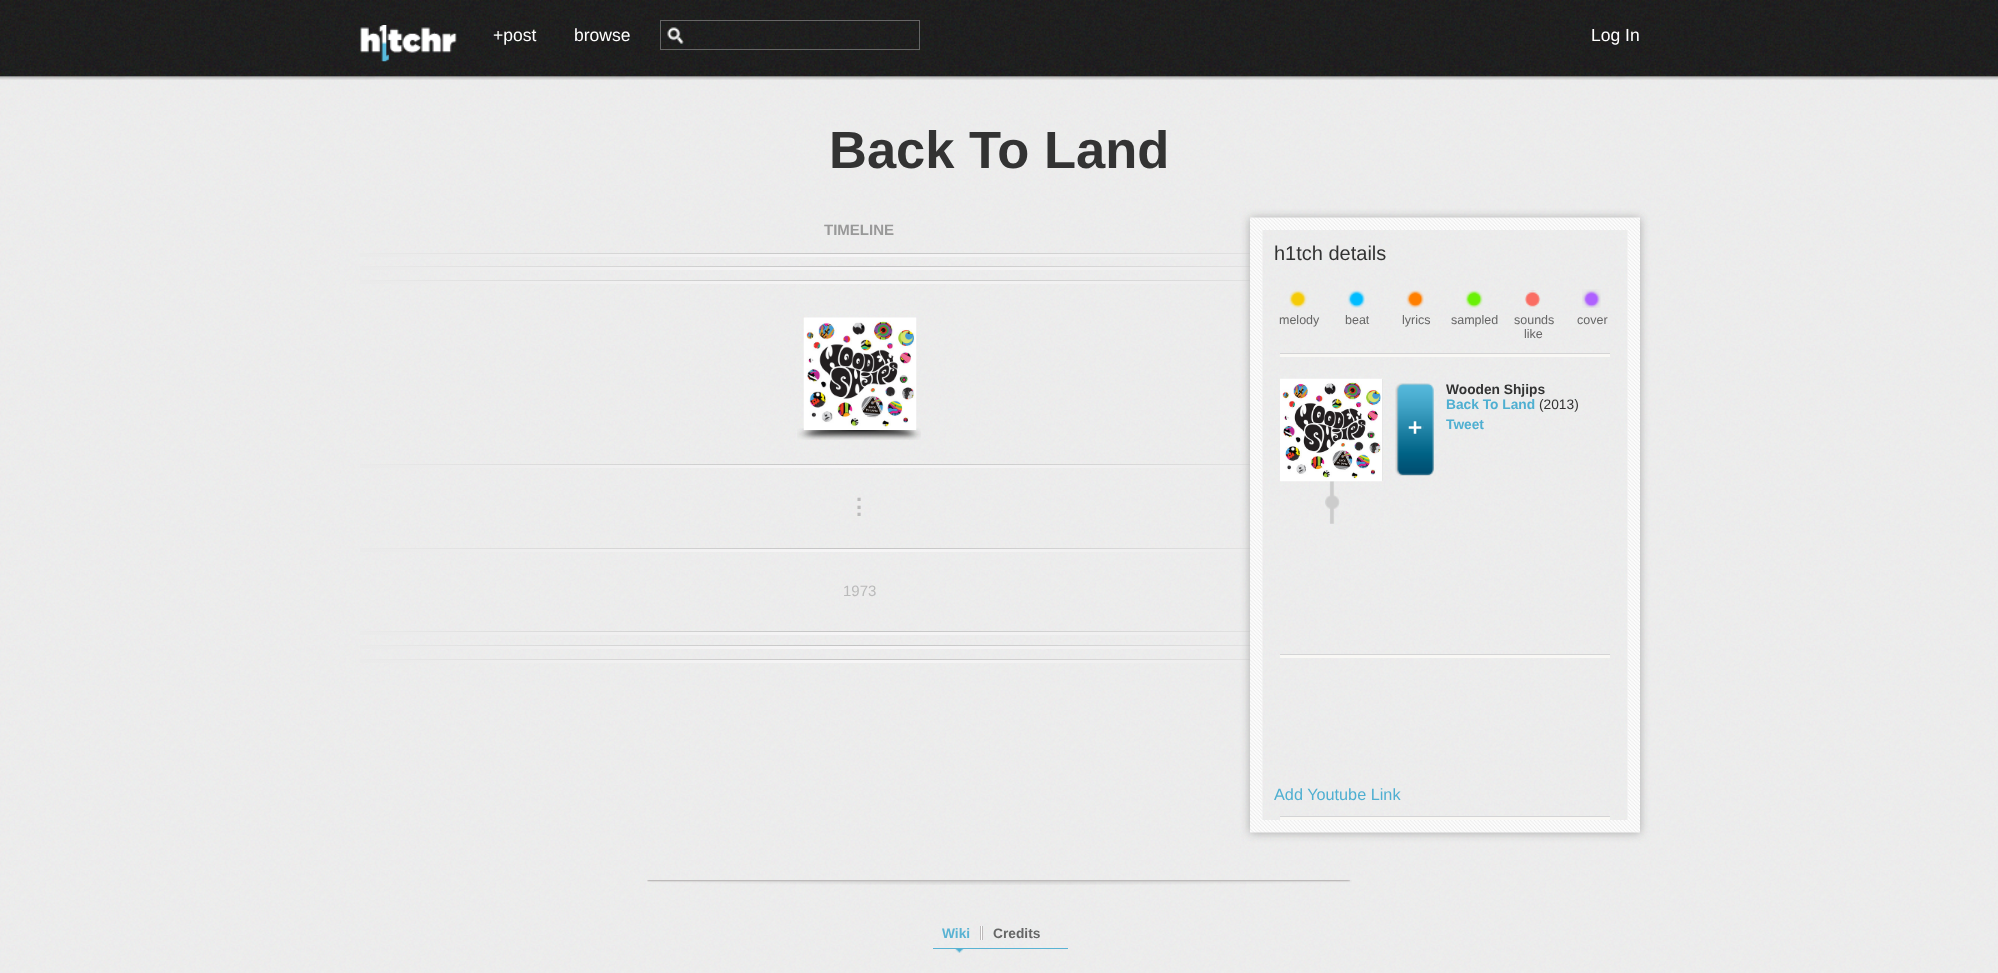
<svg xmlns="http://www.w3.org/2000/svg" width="1998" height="973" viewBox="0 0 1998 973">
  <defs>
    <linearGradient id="g1" gradientUnits="userSpaceOnUse" x1="360" y1="254" x2="1360" y2="254"><stop offset="0" stop-color="rgb(234,234,234)"/><stop offset="0.5" stop-color="rgb(246,245,246)"/><stop offset="1" stop-color="rgb(234,234,234)"/></linearGradient>
    <linearGradient id="g2" gradientUnits="userSpaceOnUse" x1="360" y1="253" x2="1360" y2="253"><stop offset="0" stop-color="rgb(234,234,234)"/><stop offset="0.5" stop-color="rgb(195,195,195)"/><stop offset="1" stop-color="rgb(234,234,234)"/></linearGradient>
    <linearGradient id="g3" gradientUnits="userSpaceOnUse" x1="360" y1="268" x2="1360" y2="268"><stop offset="0" stop-color="rgb(234,234,234)"/><stop offset="0.5" stop-color="rgb(246,245,246)"/><stop offset="1" stop-color="rgb(234,234,234)"/></linearGradient>
    <linearGradient id="g4" gradientUnits="userSpaceOnUse" x1="360" y1="267" x2="1360" y2="267"><stop offset="0" stop-color="rgb(234,234,234)"/><stop offset="0.5" stop-color="rgb(195,195,195)"/><stop offset="1" stop-color="rgb(234,234,234)"/></linearGradient>
    <linearGradient id="g5" gradientUnits="userSpaceOnUse" x1="360" y1="282" x2="1360" y2="282"><stop offset="0" stop-color="rgb(234,234,234)"/><stop offset="0.5" stop-color="rgb(246,245,246)"/><stop offset="1" stop-color="rgb(234,234,234)"/></linearGradient>
    <linearGradient id="g6" gradientUnits="userSpaceOnUse" x1="360" y1="281" x2="1360" y2="281"><stop offset="0" stop-color="rgb(234,234,234)"/><stop offset="0.5" stop-color="rgb(195,195,195)"/><stop offset="1" stop-color="rgb(234,234,234)"/></linearGradient>
    <linearGradient id="g7" gradientUnits="userSpaceOnUse" x1="360" y1="466" x2="1360" y2="466"><stop offset="0" stop-color="rgb(234,234,234)"/><stop offset="0.5" stop-color="rgb(246,245,246)"/><stop offset="1" stop-color="rgb(234,234,234)"/></linearGradient>
    <linearGradient id="g8" gradientUnits="userSpaceOnUse" x1="360" y1="464" x2="1360" y2="464"><stop offset="0" stop-color="rgb(234,234,234)"/><stop offset="0.5" stop-color="rgb(195,195,195)"/><stop offset="1" stop-color="rgb(234,234,234)"/></linearGradient>
    <linearGradient id="g9" gradientUnits="userSpaceOnUse" x1="360" y1="549" x2="1360" y2="549"><stop offset="0" stop-color="rgb(234,234,234)"/><stop offset="0.5" stop-color="rgb(246,245,246)"/><stop offset="1" stop-color="rgb(234,234,234)"/></linearGradient>
    <linearGradient id="g10" gradientUnits="userSpaceOnUse" x1="360" y1="548" x2="1360" y2="548"><stop offset="0" stop-color="rgb(234,234,234)"/><stop offset="0.5" stop-color="rgb(195,195,195)"/><stop offset="1" stop-color="rgb(234,234,234)"/></linearGradient>
    <linearGradient id="g11" gradientUnits="userSpaceOnUse" x1="360" y1="633" x2="1360" y2="633"><stop offset="0" stop-color="rgb(234,234,234)"/><stop offset="0.5" stop-color="rgb(246,245,246)"/><stop offset="1" stop-color="rgb(234,234,234)"/></linearGradient>
    <linearGradient id="g12" gradientUnits="userSpaceOnUse" x1="360" y1="632" x2="1360" y2="632"><stop offset="0" stop-color="rgb(234,234,234)"/><stop offset="0.5" stop-color="rgb(195,195,195)"/><stop offset="1" stop-color="rgb(234,234,234)"/></linearGradient>
    <linearGradient id="g13" gradientUnits="userSpaceOnUse" x1="360" y1="647" x2="1360" y2="647"><stop offset="0" stop-color="rgb(234,234,234)"/><stop offset="0.5" stop-color="rgb(246,245,246)"/><stop offset="1" stop-color="rgb(234,234,234)"/></linearGradient>
    <linearGradient id="g14" gradientUnits="userSpaceOnUse" x1="360" y1="646" x2="1360" y2="646"><stop offset="0" stop-color="rgb(234,234,234)"/><stop offset="0.5" stop-color="rgb(195,195,195)"/><stop offset="1" stop-color="rgb(234,234,234)"/></linearGradient>
    <linearGradient id="g15" gradientUnits="userSpaceOnUse" x1="360" y1="661" x2="1360" y2="661"><stop offset="0" stop-color="rgb(234,234,234)"/><stop offset="0.5" stop-color="rgb(246,245,246)"/><stop offset="1" stop-color="rgb(234,234,234)"/></linearGradient>
    <linearGradient id="g16" gradientUnits="userSpaceOnUse" x1="360" y1="659" x2="1360" y2="659"><stop offset="0" stop-color="rgb(234,234,234)"/><stop offset="0.5" stop-color="rgb(195,195,195)"/><stop offset="1" stop-color="rgb(234,234,234)"/></linearGradient>
  </defs>
  <rect width="100%" height="100%" fill="rgb(255,255,255)"/>
  <image x="0" y="76" width="1998" height="897" href="pic1.png"/>
  <image x="0" y="0" width="1998" height="80" href="pic2.png"/>
  <image x="360" y="25" width="97" height="37" href="pic3.png"/>
  <image x="667" y="27" width="17" height="17" href="pic4.png"/>
  <rect x="660.5" y="20.5" width="259" height="29" fill="none" stroke="rgb(102,102,102)"/>
  <g font-family="Liberation Sans" font-size="17.5" fill="rgb(255,255,255)">
    <text x="493" y="41">+post</text>
    <text x="574" y="41">browse</text>
    <text x="1591" y="41">Log In</text>
  </g>
  <text x="829" y="168" font-family="Liberation Sans" font-size="52.5" font-weight="bold" fill="rgb(51,51,51)">Back To Land</text>
  <text x="824" y="235" font-family="Liberation Sans" font-size="15" font-weight="bold" fill="rgb(153,153,153)">TIMELINE</text>
  <rect x="360" y="254" width="890" height="3" fill="url(#g1)"/>
  <rect x="360" y="253" width="890" height="1" fill="url(#g2)"/>
  <rect x="360" y="267" width="890" height="3" fill="url(#g3)"/>
  <rect x="360" y="266" width="890" height="1" fill="url(#g4)"/>
  <rect x="360" y="281" width="890" height="3" fill="url(#g5)"/>
  <rect x="360" y="280" width="890" height="1" fill="url(#g6)"/>
  <image x="797" y="428" width="124" height="12" href="pic6.png"/>
  <image x="803" y="317" width="114" height="113" href="pic5.png"/>
  <rect x="360" y="465" width="890" height="3" fill="url(#g7)"/>
  <rect x="360" y="464" width="890" height="1" fill="url(#g8)"/>
  <g font-family="Liberation Sans" font-size="22" font-weight="bold" fill="rgb(186,186,186)">
    <text>
      <tspan x="856" y="501">.</tspan>
      <tspan x="856" y="509">.</tspan>
      <tspan x="856" y="516">.</tspan>
    </text>
  </g>
  <rect x="360" y="549" width="890" height="3" fill="url(#g9)"/>
  <rect x="360" y="548" width="890" height="1" fill="url(#g10)"/>
  <text x="843" y="596" font-family="Liberation Sans" font-size="15" fill="rgb(186,186,186)">1973</text>
  <rect x="360" y="632" width="890" height="3" fill="url(#g11)"/>
  <rect x="360" y="631" width="890" height="1" fill="url(#g12)"/>
  <rect x="360" y="646" width="890" height="3" fill="url(#g13)"/>
  <rect x="360" y="645" width="890" height="1" fill="url(#g14)"/>
  <rect x="360" y="660" width="890" height="3" fill="url(#g15)"/>
  <rect x="360" y="659" width="890" height="1" fill="url(#g16)"/>
  <rect x="1250" y="218" width="390" height="615" fill="rgb(170,170,170)" filter="blur(5px)"/>
  <image x="1250" y="217" width="390" height="616" href="pic7.png"/>
  <image x="1262" y="230" width="366" height="590" href="pic8.png"/>
  <text x="1274" y="260" font-family="Liberation Sans" font-size="20" fill="rgb(51,51,51)">h1tch details</text>
  <image x="1289" y="290" width="18" height="18" href="pic9.png"/>
  <image x="1347" y="290" width="18" height="18" href="pic10.png"/>
  <image x="1406" y="290" width="18" height="18" href="pic11.png"/>
  <image x="1465" y="290" width="18" height="18" href="pic12.png"/>
  <image x="1524" y="290" width="17" height="17" href="pic13.png"/>
  <image x="1582" y="289" width="19" height="19" href="pic14.png"/>
  <g font-family="Liberation Sans" font-size="12.5" fill="rgb(102,102,102)">
    <text x="1279" y="324">melody</text>
    <text x="1345" y="324">beat</text>
    <text x="1402" y="324">lyrics</text>
    <text x="1451" y="324">sampled</text>
    <text x="1514" y="324">sounds</text>
    <text x="1524" y="338">like</text>
    <text x="1577" y="324">cover</text>
  </g>
  <rect x="1280" y="354" width="330" height="3" fill="rgb(249,248,245)"/>
  <rect x="1280" y="353" width="330" height="1" fill="rgb(212,212,213)"/>
  <rect x="1382" y="379" width="1" height="102" fill="rgb(204,204,204)"/>
  <image x="1325" y="481" width="15" height="43" href="pic17.png"/>
  <image x="1280" y="378" width="103" height="104" href="pic15.png"/>
  <image x="1395" y="383" width="39" height="93" href="pic16.png"/>
  <text x="1446" y="394" font-family="Liberation Sans" font-size="13.75" font-weight="bold" fill="rgb(51,51,51)">Wooden Shjips</text>
  <text x="1446" y="409" font-family="Liberation Sans" font-size="13.75" font-weight="bold" fill="rgb(79,175,209)">Back To Land</text>
  <text x="1539" y="409" font-family="Liberation Sans" font-size="13.75" fill="rgb(51,51,51)">(2013)</text>
  <text x="1446" y="429" font-family="Liberation Sans" font-size="13.75" font-weight="bold" fill="rgb(79,175,209)">Tweet</text>
  <rect x="1280" y="655" width="330" height="3" fill="rgb(249,248,245)"/>
  <rect x="1280" y="654" width="330" height="1" fill="rgb(212,212,213)"/>
  <text x="1274" y="800" font-family="Liberation Sans" font-size="16.25" fill="rgb(79,175,209)">Add Youtube Link</text>
  <rect x="1280" y="817" width="330" height="3" fill="rgb(249,248,245)"/>
  <rect x="1280" y="816" width="330" height="1" fill="rgb(212,212,213)"/>
  <image x="647" y="880" width="705" height="5" href="pic18.png"/>
  <text x="942" y="938" font-family="Liberation Sans" font-size="13.75" font-weight="bold" fill="rgb(90,179,211)">Wiki</text>
  <rect x="980" y="926" width="3" height="14" fill="rgb(189,186,186)"/>
  <rect x="981" y="926" width="1" height="14" fill="rgb(255,255,255)"/>
  <text x="993" y="938" font-family="Liberation Sans" font-size="13.75" font-weight="bold" fill="rgb(102,102,102)">Credits</text>
  <rect x="933" y="948" width="135" height="1" fill="rgb(90,179,211)"/>
  <image x="955" y="949" width="9" height="4" href="pic19.png"/>
</svg>
